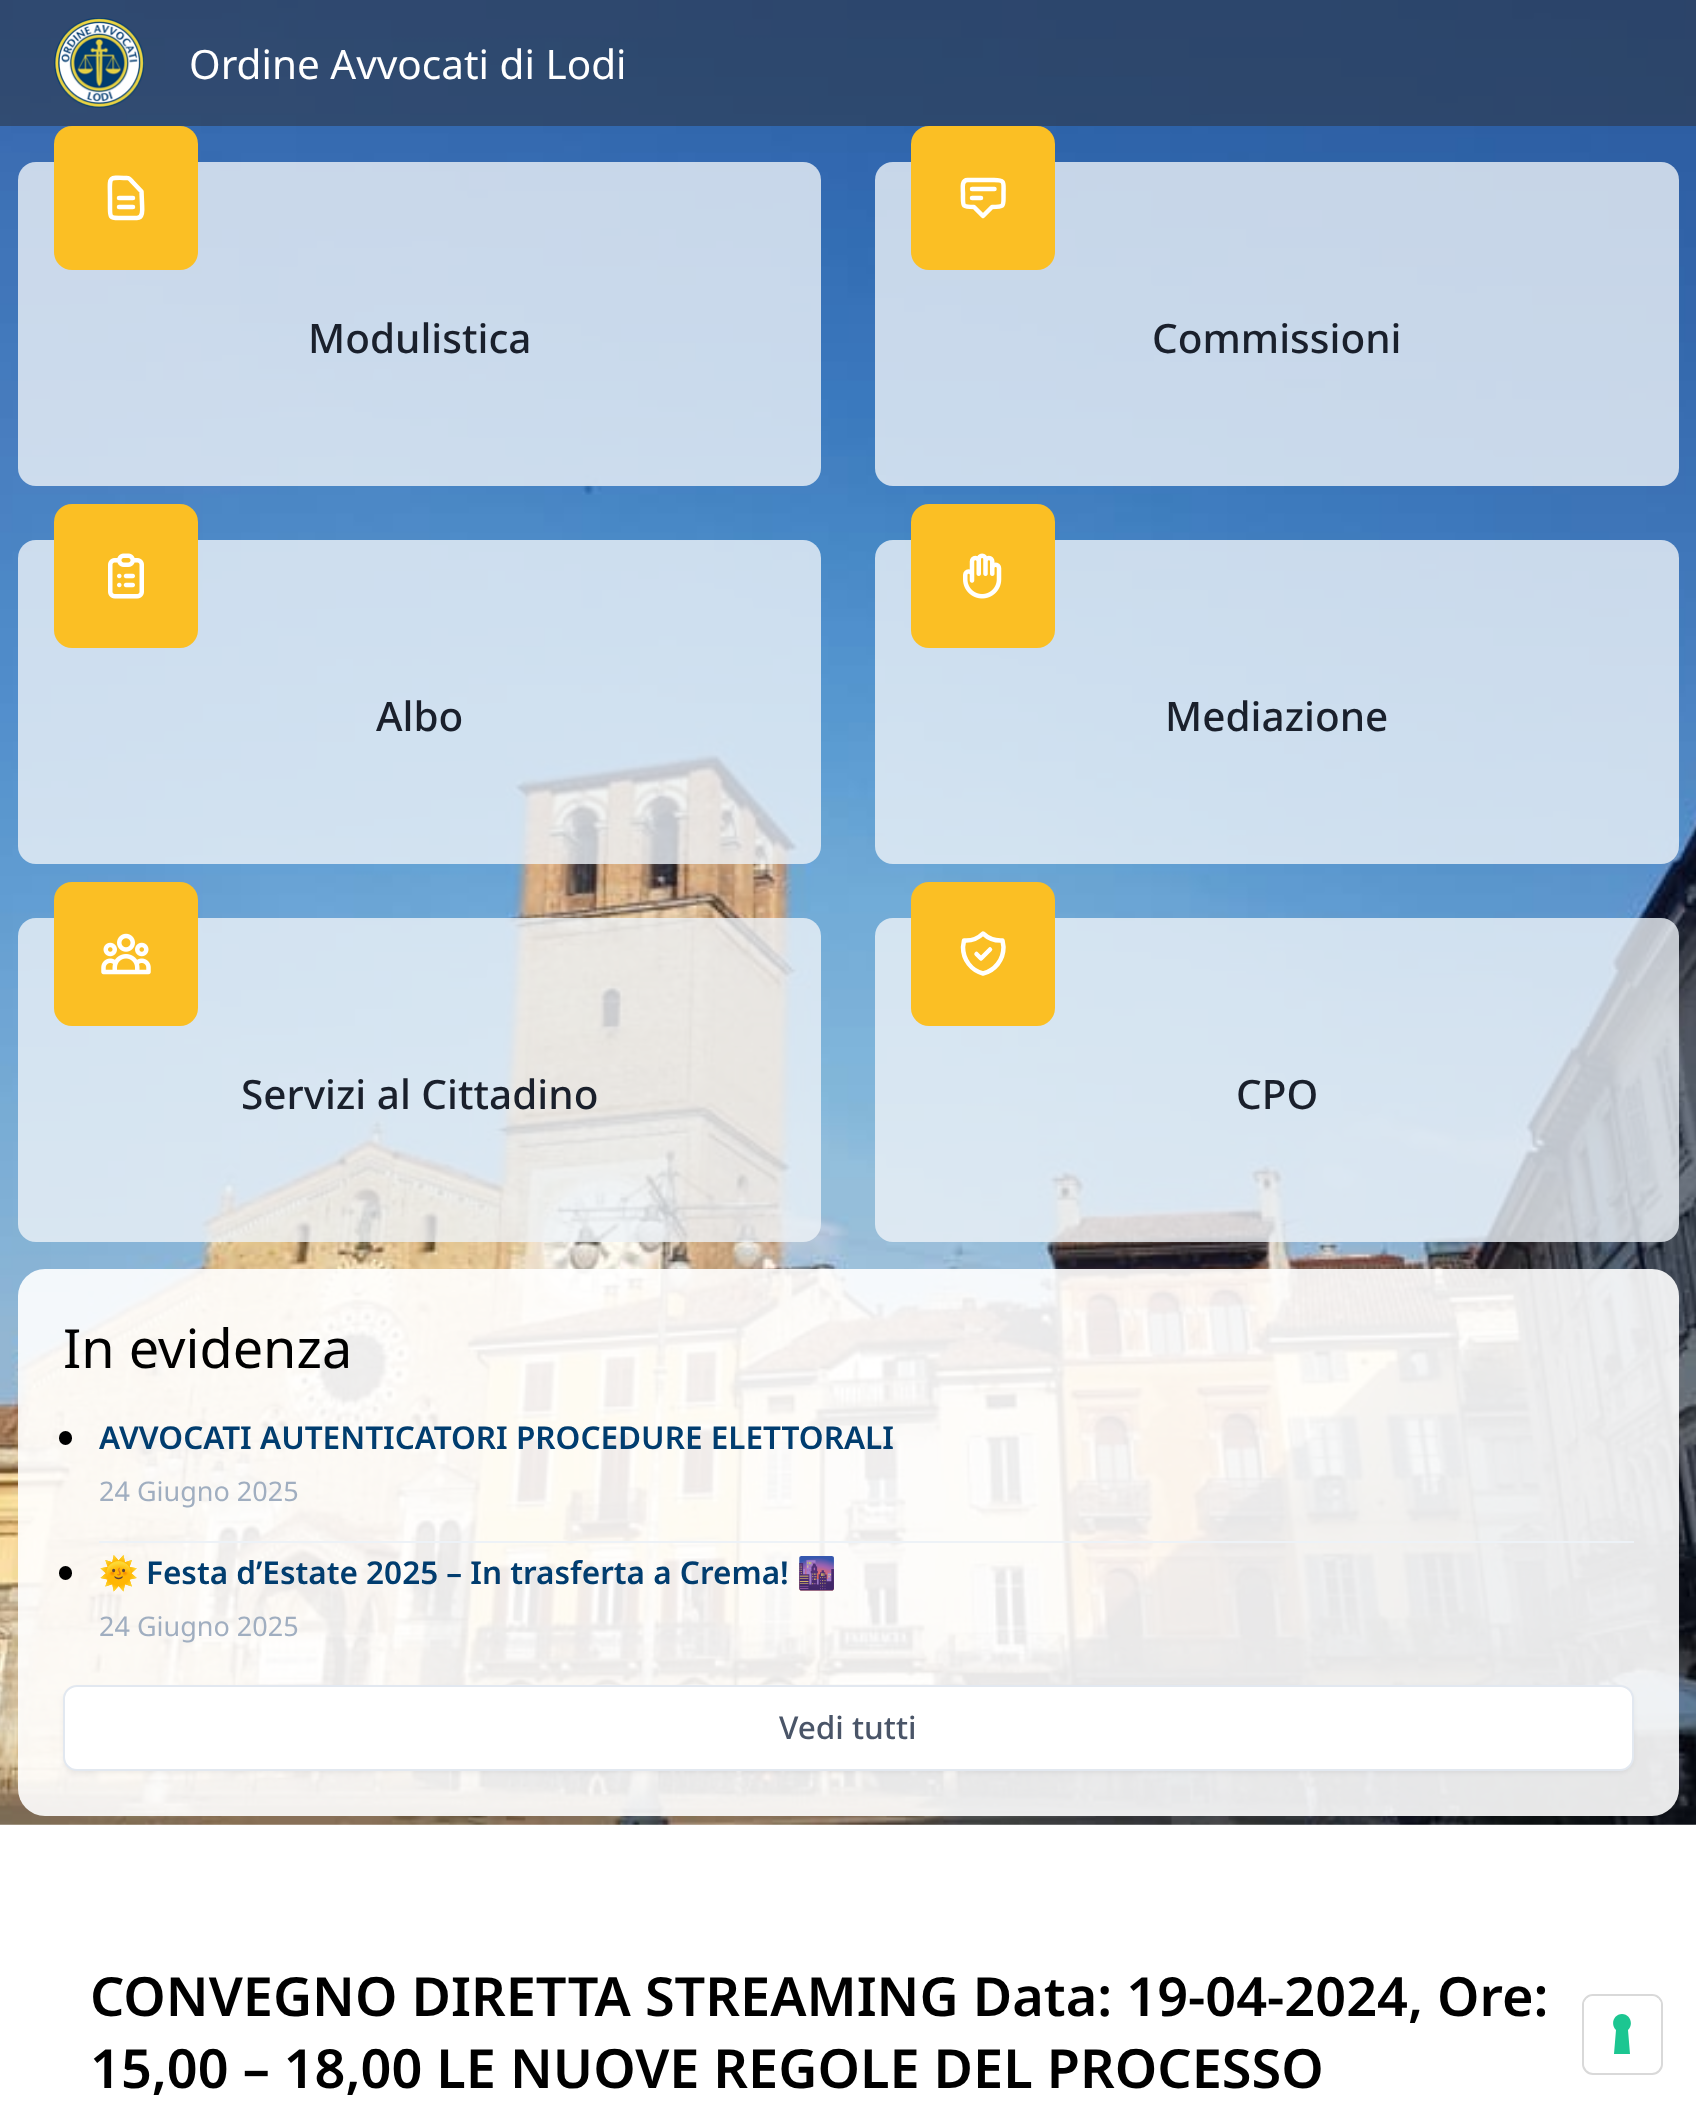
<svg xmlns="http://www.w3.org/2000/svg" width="1696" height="2107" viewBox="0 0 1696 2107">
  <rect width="100%" height="100%" fill="rgb(255,255,255)"/>
  <image x="0" y="0" width="1696" height="1825" href="pic1.png"/>
  <rect x="0" y="0" width="1696" height="126" fill="rgba(45,55,72,0.6)"/>
  <image x="54" y="18" width="90" height="90" href="pic2.png"/>
  <text x="189" y="79" font-family="Noto Sans" font-size="40.5" fill="rgb(255,255,255)">Ordine Avvocati di Lodi</text>
  <rect x="18" y="162" width="803" height="324" rx="18" fill="rgba(237,242,247,0.8)"/>
  <rect x="54" y="126" width="144" height="144" rx="18" fill="rgb(251,191,36)"/>
  <path d="M119 198H133M119 207H133M137 218H118.5C110 218 110 216.5 110 208.5V198C110 176 107 177.5 127.5 178C129.5 178 131.5 181 133 182.5L141.5 191.5L142 203C142 207 144 218 137 218Z" fill="none" stroke="rgb(255,255,255)" stroke-width="4.5" stroke-linecap="round" stroke-linejoin="round"/>
  <text x="308" y="353" font-family="Noto Sans" font-size="40.5" font-weight="500" fill="rgb(26,32,44)">Modulistica</text>
  <rect x="875" y="162" width="804" height="324" rx="18" fill="rgba(237,242,247,0.8)"/>
  <rect x="911" y="126" width="144" height="144" rx="18" fill="rgb(251,191,36)"/>
  <path d="M972 189H994.5M972 198H981M983 216L974 207C961.5 207 963 206.5 963 193.5C963 189.5 961 180 967.5 180H994C1005.5 180 1003.5 182.5 1003.5 193.5C1003.5 206.5 1005 207 992 207Z" fill="none" stroke="rgb(255,255,255)" stroke-width="4.5" stroke-linecap="round" stroke-linejoin="round"/>
  <text x="1152" y="353" font-family="Noto Sans" font-size="40.5" font-weight="500" fill="rgb(26,32,44)">Commissioni</text>
  <rect x="18" y="540" width="803" height="324" rx="18" fill="rgba(237,242,247,0.8)"/>
  <rect x="54" y="504" width="144" height="144" rx="18" fill="rgb(251,191,36)"/>
  <image x="108" y="553" width="36" height="46" href="pic3.png"/>
  <text x="376" y="731" font-family="Noto Sans" font-size="40.5" font-weight="500" fill="rgb(26,32,44)">Albo</text>
  <rect x="875" y="540" width="804" height="324" rx="18" fill="rgba(237,242,247,0.8)"/>
  <rect x="911" y="504" width="144" height="144" rx="18" fill="rgb(251,191,36)"/>
  <image x="963" y="553" width="39" height="46" href="pic4.png"/>
  <text x="1165" y="731" font-family="Noto Sans" font-size="40.5" font-weight="500" fill="rgb(26,32,44)">Mediazione</text>
  <rect x="18" y="918" width="803" height="324" rx="18" fill="rgba(237,242,247,0.8)"/>
  <rect x="54" y="882" width="144" height="144" rx="18" fill="rgb(251,191,36)"/>
  <image x="101" y="933" width="50" height="42" href="pic5.png"/>
  <text x="241" y="1109" font-family="Noto Sans" font-size="40.5" font-weight="500" fill="rgb(26,32,44)">Servizi al Cittadino</text>
  <rect x="875" y="918" width="804" height="324" rx="18" fill="rgba(237,242,247,0.8)"/>
  <rect x="911" y="882" width="144" height="144" rx="18" fill="rgb(251,191,36)"/>
  <path d="M976.5 954L981 958.5L990 949.5M1002.5 940.5C995.5 941 988.5 938.5 983 933.5C978 938.5 971 941 964 940.5L963 947C963 960 971.5 970.5 983 973.5C995 970.5 1003.5 960 1003.5 947Z" fill="none" stroke="rgb(255,255,255)" stroke-width="4.5" stroke-linecap="round" stroke-linejoin="round"/>
  <text x="1236" y="1109" font-family="Noto Sans" font-size="40.5" font-weight="500" fill="rgb(26,32,44)">CPO</text>
  <rect x="18" y="1269" width="1661" height="547" rx="27" fill="rgba(255,255,255,0.9)"/>
  <text x="63" y="1368" font-family="Noto Sans" font-size="54" fill="rgb(0,0,0)">In evidenza</text>
  <rect x="59" y="1431" width="13" height="14" rx="6.5" fill="rgb(0,0,0)"/>
  <text x="99" y="1449" font-family="Noto Sans" font-size="31.5" font-weight="600" fill="rgb(1,61,111)">AVVOCATI AUTENTICATORI PROCEDURE ELETTORALI</text>
  <text x="99" y="1501" font-family="Noto Sans" font-size="27" fill="rgb(160,174,192)">24 Giugno 2025</text>
  <rect x="99" y="1541" width="1535" height="2" fill="rgb(237,242,247)"/>
  <rect x="59" y="1566" width="13" height="14" rx="6.5" fill="rgb(0,0,0)"/>
  <text x="99" y="1584" font-family="Noto Color Emoji" font-size="31.5" font-weight="bold" fill="rgb(1,61,111)">🌞</text>
  <text x="146" y="1584" font-family="Noto Sans" font-size="31.5" font-weight="600" fill="rgb(1,61,111)">Festa d’Estate 2025 – In trasferta a Crema!</text>
  <text x="797" y="1584" font-family="Noto Color Emoji" font-size="31.5" font-weight="bold" fill="rgb(1,61,111)">🌆</text>
  <text x="99" y="1636" font-family="Noto Sans" font-size="27" fill="rgb(160,174,192)">24 Giugno 2025</text>
  <rect x="63" y="1688" width="1571" height="85" rx="14" fill="rgba(0,0,0,0.05)" filter="blur(2px)"/>
  <rect x="64" y="1686" width="1569" height="84" rx="13" fill="rgb(255,255,255)" stroke="rgb(226,232,240)" stroke-width="2"/>
  <text x="779" y="1739" font-family="Noto Sans" font-size="31.5" font-weight="500" fill="rgb(74,85,104)">Vedi tutti</text>
  <g font-family="Noto Sans" font-size="54" font-weight="600" fill="rgb(0,0,0)">
    <text>
      <tspan x="90" y="2016">CONVEGNO DIRETTA STREAMING Data: 19-04-2024, Ore:</tspan>
      <tspan x="90" y="2088">15,00 – 18,00 LE NUOVE REGOLE DEL PROCESSO</tspan>
    </text>
  </g>
  <rect x="1583" y="1995" width="79" height="79" rx="10" fill="none" stroke="rgb(217,217,217)" stroke-width="2"/>
  <rect x="1584" y="1996" width="77" height="76" rx="9" fill="rgb(255,255,255)"/>
  <path d="M1622 2014C1630 2014 1634 2024 1628 2030L1630 2054H1614L1616 2030C1610 2024 1614 2014 1622 2014Z" fill="rgb(28,198,145)" fill-rule="evenodd"/>
</svg>
